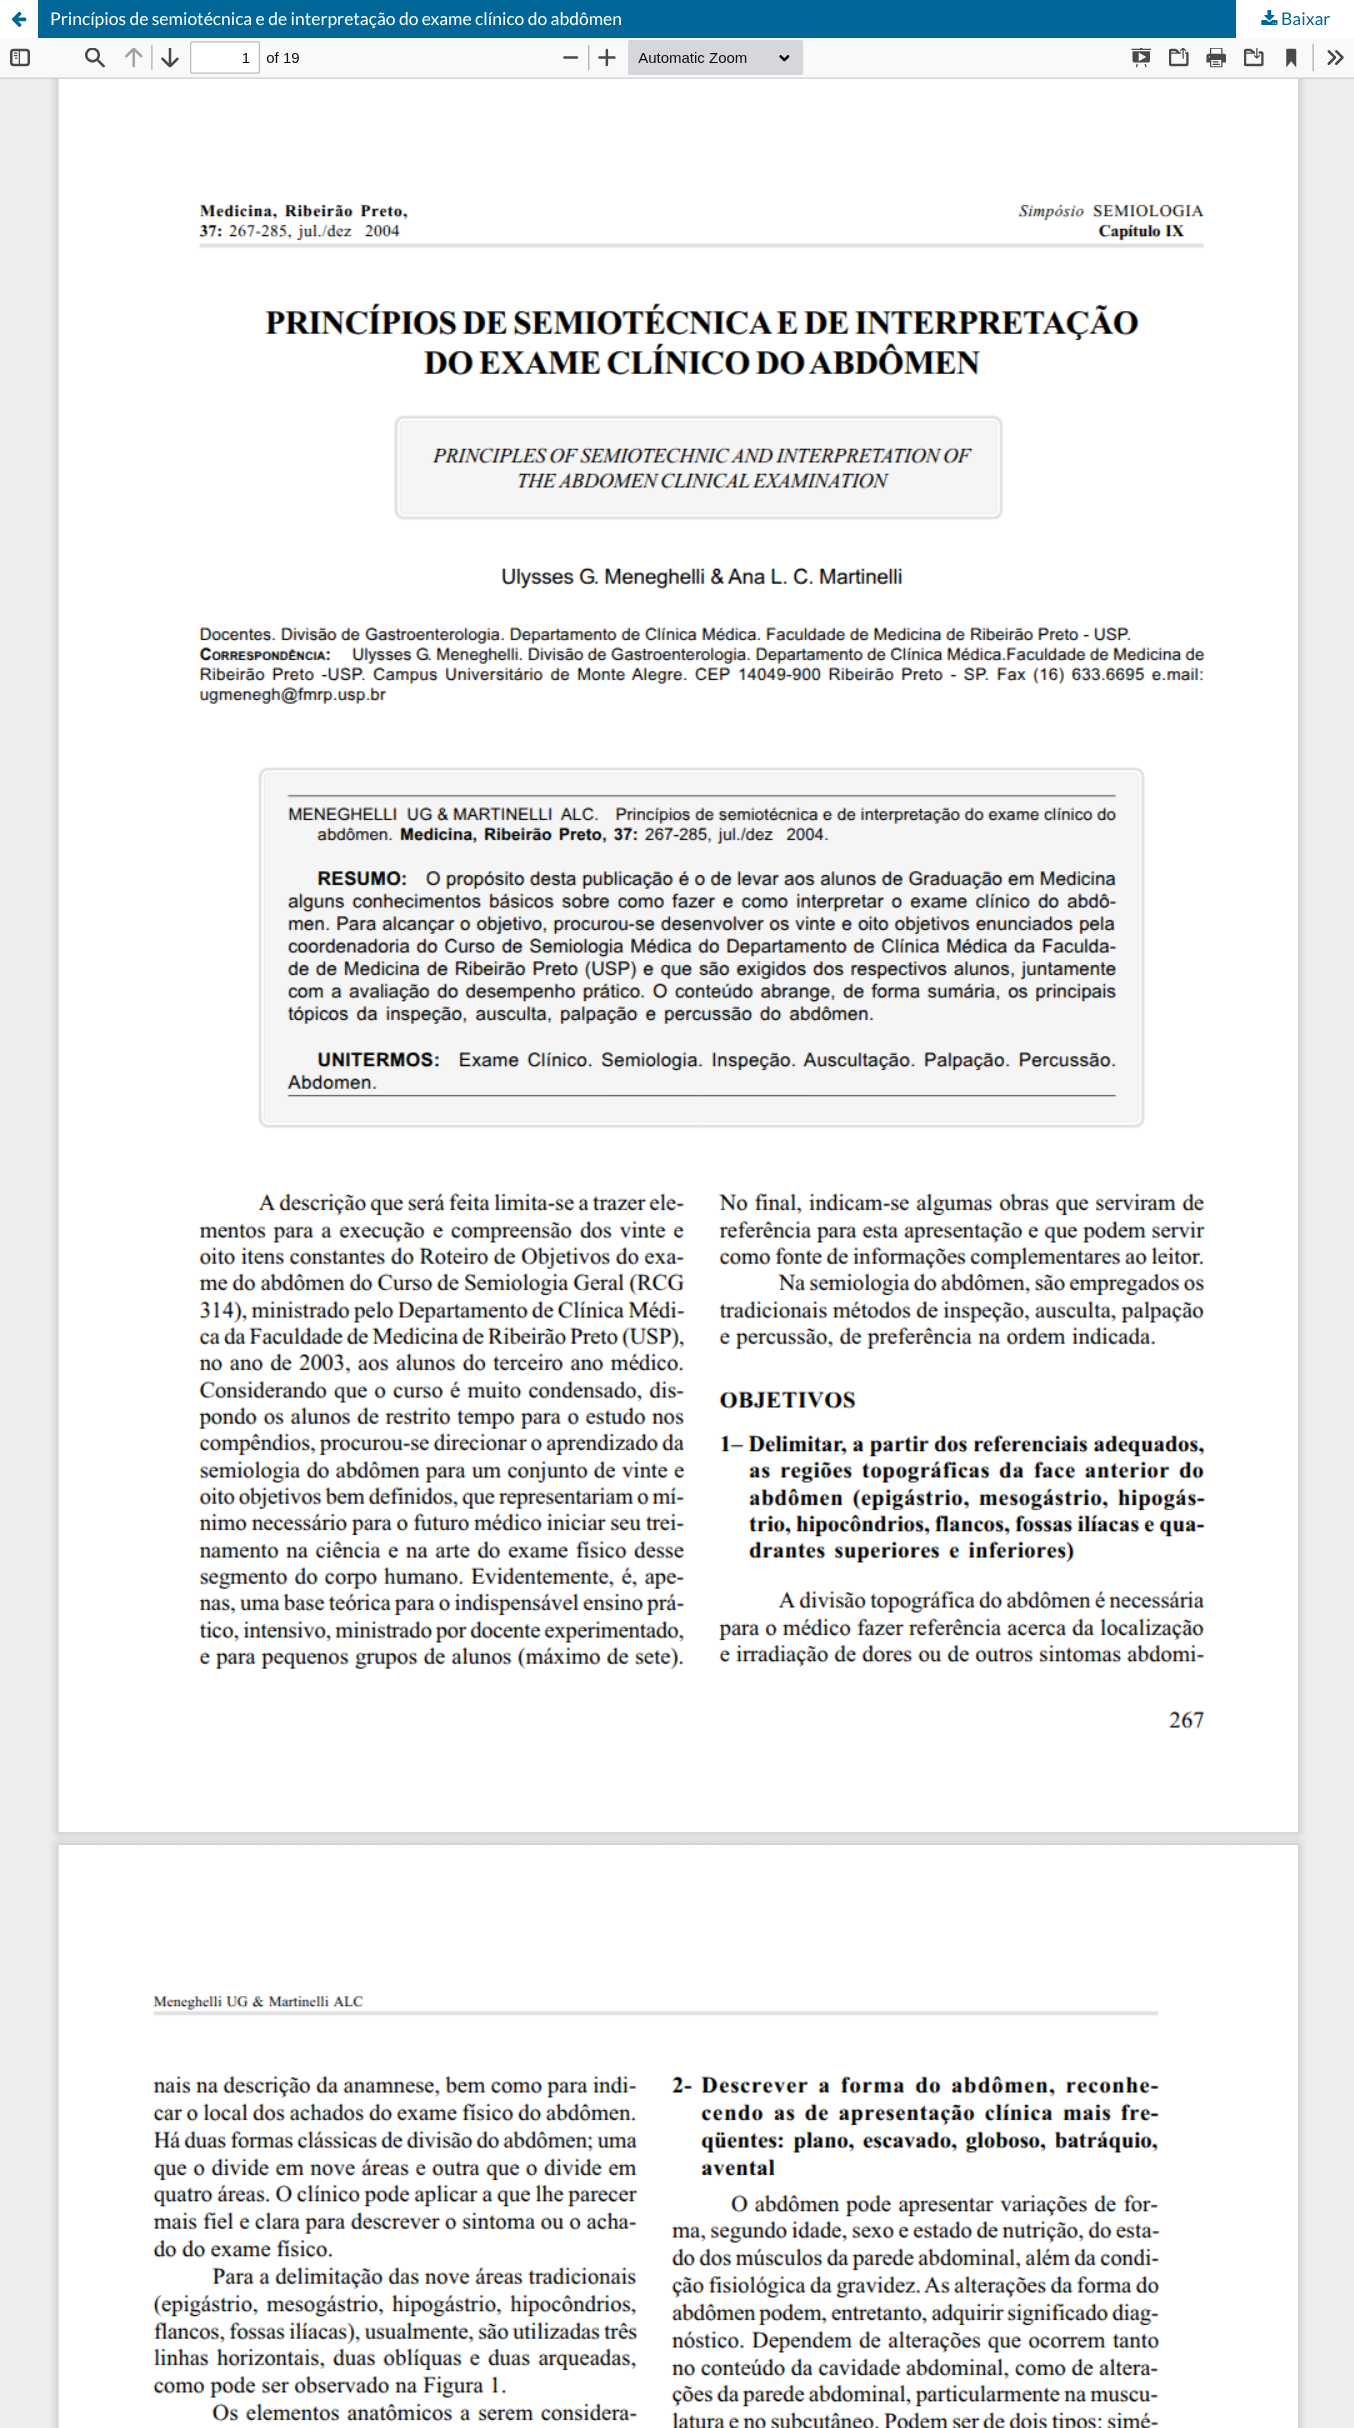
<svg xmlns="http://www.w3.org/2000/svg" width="1354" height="2428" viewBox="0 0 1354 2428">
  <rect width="100%" height="100%" fill="rgb(255,255,255)"/>
  <rect x="38" y="0" width="1198" height="38" fill="rgb(0,103,152)"/>
  <image x="11" y="11" width="16" height="16" href="pic1.png"/>
  <text x="50" y="25" font-family="Lato" font-size="17.5" fill="rgb(255,255,255)">Princípios de semiotécnica e de interpretação do exame clínico do abdômen</text>
  <image x="1261" y="10" width="17" height="15" href="pic2.png"/>
  <text x="1281" y="25" font-family="Lato" font-size="17.5" fill="rgb(0,103,152)">Baixar</text>
  <image x="0" y="38" width="1354" height="2390" href="pic3.png"/>
</svg>
